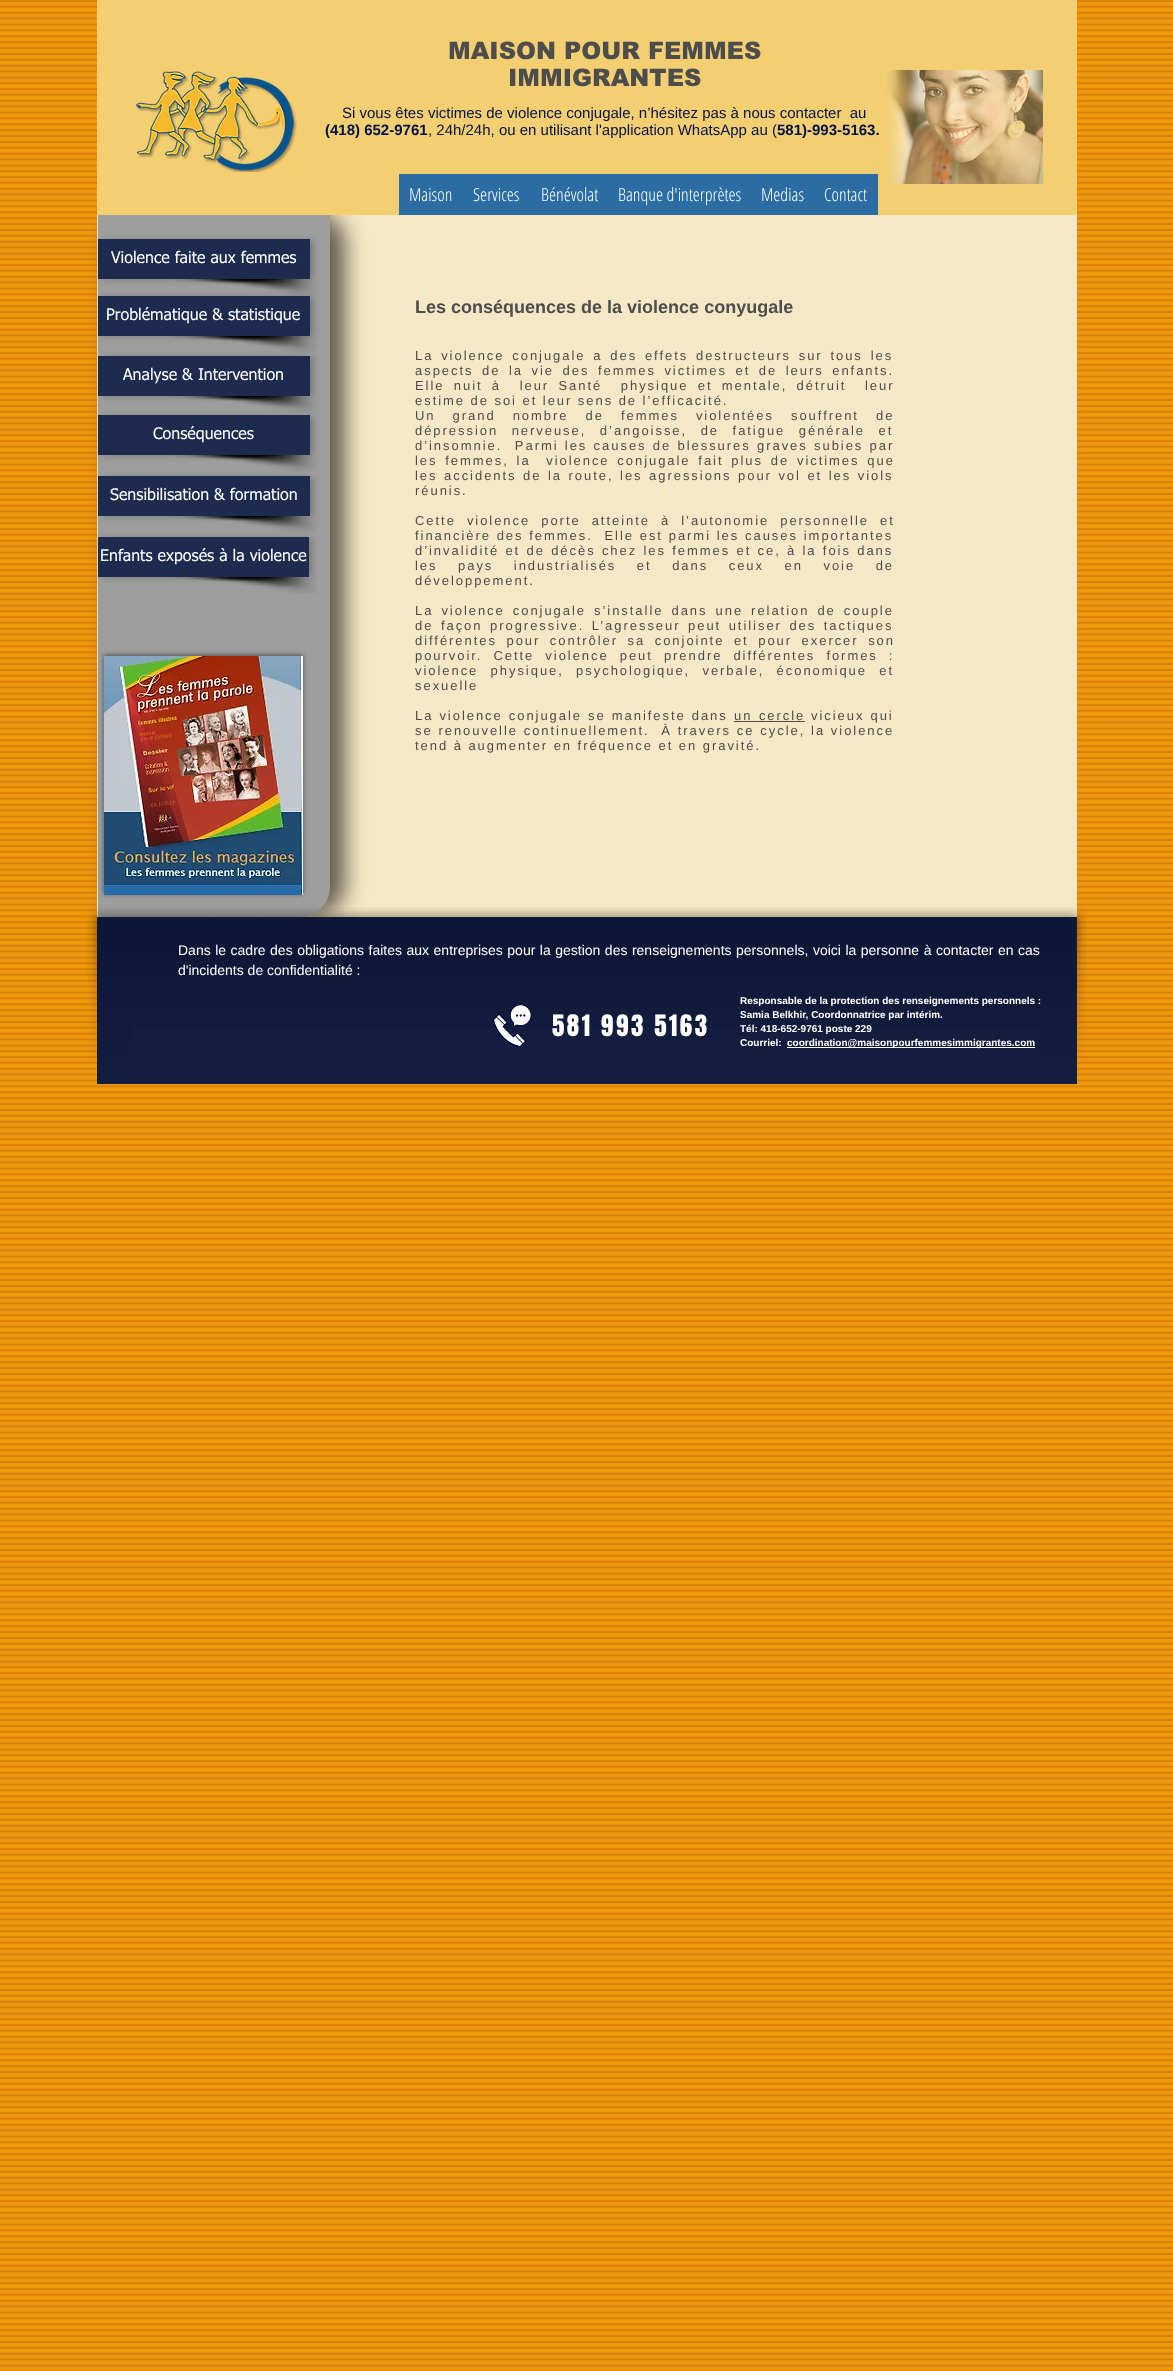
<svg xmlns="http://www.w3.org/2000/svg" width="1173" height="2371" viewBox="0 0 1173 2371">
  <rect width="100%" height="100%" fill="rgb(242,150,12)"/>
  <image x="0" y="0" width="1173" height="2371" href="pic1.png"/>
  <rect x="97" y="215" width="980" height="702" fill="rgb(246,231,198)"/>
  <rect x="113" y="213" width="232" height="702" rx="30" fill="rgba(0,0,0,0.6)" filter="blur(10.5px)"/>
  <rect x="97" y="0" width="980" height="215" fill="rgb(244,207,113)"/>
  <g font-family="arial" font-size="24" font-weight="900" fill="rgb(77,77,77)">
    <text x="448" y="59">MAISON POUR FEMMES</text>
    <text x="508" y="86">IMMIGRANTES</text>
  </g>
  <image x="136" y="71" width="161" height="101" href="pic2.png"/>
  <text x="342" y="118" font-family="Liberation Sans" font-size="15" fill="rgb(1,18,74)" xml:space="preserve">Si vous êtes victimes de violence conjugale, n’hésitez pas à nous contacter  au</text>
  <text x="325" y="135" font-family="Liberation Sans" font-size="15" font-weight="bold" fill="rgb(1,18,74)">(418) 652-9761</text>
  <text x="428" y="135" font-family="Liberation Sans" font-size="15" fill="rgb(1,18,74)">, 24h/24h, ou en utilisant l'application WhatsApp au (</text>
  <text x="777" y="135" font-family="Liberation Sans" font-size="15" font-weight="bold" fill="rgb(1,18,74)">581)-993-5163.</text>
  <image x="886" y="70" width="157" height="114" href="pic3.png"/>
  <rect x="399" y="174" width="479" height="41" fill="rgb(43,108,163)"/>
  <g font-family="Open Sans Condensed" font-size="18" font-weight="300" fill="rgb(255,255,255)">
    <text x="409" y="201">Maison</text>
    <text x="473" y="201">Services</text>
    <text x="541" y="201">Bénévolat</text>
    <text x="618" y="201">Banque d'interprètes</text>
    <text x="761" y="201">Medias</text>
    <text x="824" y="201">Contact</text>
  </g>
  <path d="M98 215H330V887C330 903.5 316.5 917 300 917H98Z" fill="rgb(158,158,158)"/>
  <rect x="104" y="655" width="199" height="239" fill="rgba(0,0,0,0.5)" filter="blur(2.5px)"/>
  <image x="104" y="656" width="199" height="239" href="pic4.png"/>
  <image x="170" y="279" width="148" height="17" href="pic5.png"/>
  <rect x="102" y="240" width="212" height="40" fill="rgba(0,0,0,0.2)" filter="blur(3px)"/>
  <rect x="98" y="239" width="212" height="40" fill="rgb(29,43,79)"/>
  <text x="111" y="263" font-family="tahoma" font-size="16" fill="rgb(255,255,255)">Violence faite aux femmes</text>
  <image x="170" y="336" width="148" height="17" href="pic5.png"/>
  <rect x="102" y="297" width="212" height="40" fill="rgba(0,0,0,0.2)" filter="blur(3px)"/>
  <rect x="98" y="296" width="212" height="40" fill="rgb(29,43,79)"/>
  <text x="106" y="320" font-family="tahoma" font-size="16" fill="rgb(255,255,255)">Problématique &amp; statistique</text>
  <image x="170" y="396" width="148" height="17" href="pic5.png"/>
  <rect x="102" y="357" width="212" height="40" fill="rgba(0,0,0,0.2)" filter="blur(3px)"/>
  <rect x="98" y="356" width="212" height="40" fill="rgb(29,43,79)"/>
  <text x="123" y="380" font-family="tahoma" font-size="16" fill="rgb(255,255,255)">Analyse &amp; Intervention</text>
  <image x="170" y="455" width="148" height="17" href="pic5.png"/>
  <rect x="102" y="416" width="212" height="40" fill="rgba(0,0,0,0.2)" filter="blur(3px)"/>
  <rect x="98" y="415" width="212" height="40" fill="rgb(29,43,79)"/>
  <text x="153" y="439" font-family="tahoma" font-size="16" fill="rgb(255,255,255)">Conséquences</text>
  <image x="170" y="516" width="148" height="17" href="pic5.png"/>
  <rect x="102" y="477" width="212" height="40" fill="rgba(0,0,0,0.2)" filter="blur(3px)"/>
  <rect x="98" y="476" width="212" height="40" fill="rgb(29,43,79)"/>
  <text x="110" y="500" font-family="tahoma" font-size="16" fill="rgb(255,255,255)">Sensibilisation &amp; formation</text>
  <image x="169" y="577" width="148" height="17" href="pic5.png"/>
  <rect x="102" y="538" width="211" height="40" fill="rgba(0,0,0,0.2)" filter="blur(3px)"/>
  <rect x="98" y="537" width="211" height="40" fill="rgb(29,43,79)"/>
  <text x="100" y="561" font-family="tahoma" font-size="16" fill="rgb(255,255,255)">Enfants exposés à la violence</text>
  <text x="415" y="313" font-family="Liberation Sans" font-size="18" font-weight="bold" fill="rgb(77,77,77)">Les conséquences de la violence conyugale</text>
  <g font-family="Liberation Sans" font-size="13" letter-spacing="1.95" fill="rgb(77,77,77)">
    <text xml:space="preserve"><tspan x="415" y="360" word-spacing="2.25">La violence conjugale a des effets destructeurs sur tous les</tspan><tspan x="415" y="375" word-spacing="3">aspects de la vie des femmes victimes et de leurs enfants.</tspan><tspan x="415" y="390" word-spacing="3.75">Elle nuit à  leur Santé  physique et mentale, détruit  leur</tspan><tspan x="415" y="405">estime de soi et leur sens de l’efficacité.</tspan><tspan x="415" y="420" word-spacing="11.5">Un grand nombre de femmes violentées souffrent de</tspan><tspan x="415" y="435" word-spacing="8">dépression nerveuse, d’angoisse, de fatigue générale et</tspan><tspan x="415" y="450" word-spacing="0.75">d’insomnie.  Parmi les causes de blessures graves subies par</tspan><tspan x="415" y="465" word-spacing="2.25">les femmes, la  violence conjugale fait plus de victimes que</tspan><tspan x="415" y="480" word-spacing="1">les accidents de la route, les agressions pour vol et les viols</tspan><tspan x="415" y="495">réunis.</tspan></text>
    <text xml:space="preserve"><tspan x="415" y="525" word-spacing="5.5">Cette violence porte atteinte à l’autonomie personnelle et</tspan><tspan x="415" y="540" word-spacing="0.25">financière des femmes.  Elle est parmi les causes importantes</tspan><tspan x="415" y="555" word-spacing="0.75">d’invalidité et de décès chez les femmes et ce, à la fois dans</tspan><tspan x="415" y="570" word-spacing="15">les pays industrialisés et dans ceux en voie de</tspan><tspan x="415" y="585">développement.</tspan></text>
    <text>
      <tspan x="415" y="615" word-spacing="2.5">La violence conjugale s’installe dans une relation de couple</tspan>
      <tspan x="415" y="630" word-spacing="2">de façon progressive. L’agresseur peut utiliser des tactiques</tspan>
      <tspan x="415" y="645" word-spacing="4">différentes pour contrôler sa conjointe et pour exercer son</tspan>
      <tspan x="415" y="660" word-spacing="5.5">pourvoir. Cette violence peut prendre différentes formes :</tspan>
      <tspan x="415" y="675" word-spacing="6.75">violence physique, psychologique, verbale, économique et</tspan>
      <tspan x="415" y="690">sexuelle</tspan>
    </text>
    <text x="415" y="720" word-spacing="0.5">La violence conjugale se manifeste dans</text>
    <text x="734" y="720" word-spacing="1">un cercle</text>
  </g>
  <rect x="734" y="721" width="71" height="1" fill="rgb(77,77,77)"/>
  <g font-family="Liberation Sans" font-size="13" letter-spacing="1.95" fill="rgb(77,77,77)">
    <text x="811" y="720" word-spacing="0.5">vicieux qui</text>
    <text xml:space="preserve"><tspan x="415" y="735" word-spacing="0.25">se renouvelle continuellement.  À travers ce cycle, la violence</tspan><tspan x="415" y="750">tend à augmenter en fréquence et en gravité.</tspan></text>
  </g>
  <rect x="97" y="917" width="980" height="167" fill="rgb(47,46,46)"/>
  <image x="87" y="907" width="45" height="153" href="pic6.png"/>
  <image x="132" y="907" width="910" height="120" href="pic7.png"/>
  <image x="1042" y="907" width="45" height="153" href="pic8.png"/>
  <rect x="97" y="917" width="980" height="167" fill="rgba(1,18,74,0.6)"/>
  <g font-family="Liberation Sans" font-size="14" fill="rgb(255,255,255)">
    <text>
      <tspan x="178" y="955" word-spacing="0.6">Dans le cadre des obligations faites aux entreprises pour la gestion des renseignements personnels, voici la personne à contacter en cas</tspan>
      <tspan x="178" y="975">d'incidents de confidentialité :</tspan>
    </text>
  </g>
  <image x="492" y="1004" width="40" height="44" href="pic9.png"/>
  <text x="552" y="1036" font-family="Anton" font-size="25" letter-spacing="2.5" fill="rgb(255,255,255)">581 993 5163</text>
  <g font-family="Liberation Sans" font-size="10" font-weight="bold" fill="rgb(255,255,255)">
    <text>
      <tspan x="740" y="1004">Responsable de la protection des renseignements personnels :</tspan>
      <tspan x="740" y="1018">Samia Belkhir, Coordonnatrice par intérim.</tspan>
      <tspan x="740" y="1032">Tél: 418-652-9761 poste 229</tspan>
      <tspan x="740" y="1046">Courriel:</tspan>
    </text>
  </g>
  <rect x="787" y="1047" width="248" height="1" fill="rgb(255,255,255)"/>
  <text x="787" y="1046" font-family="Liberation Sans" font-size="10" font-weight="bold" fill="rgb(255,255,255)">coordination@maisonpourfemmesimmigrantes.com</text>
</svg>
